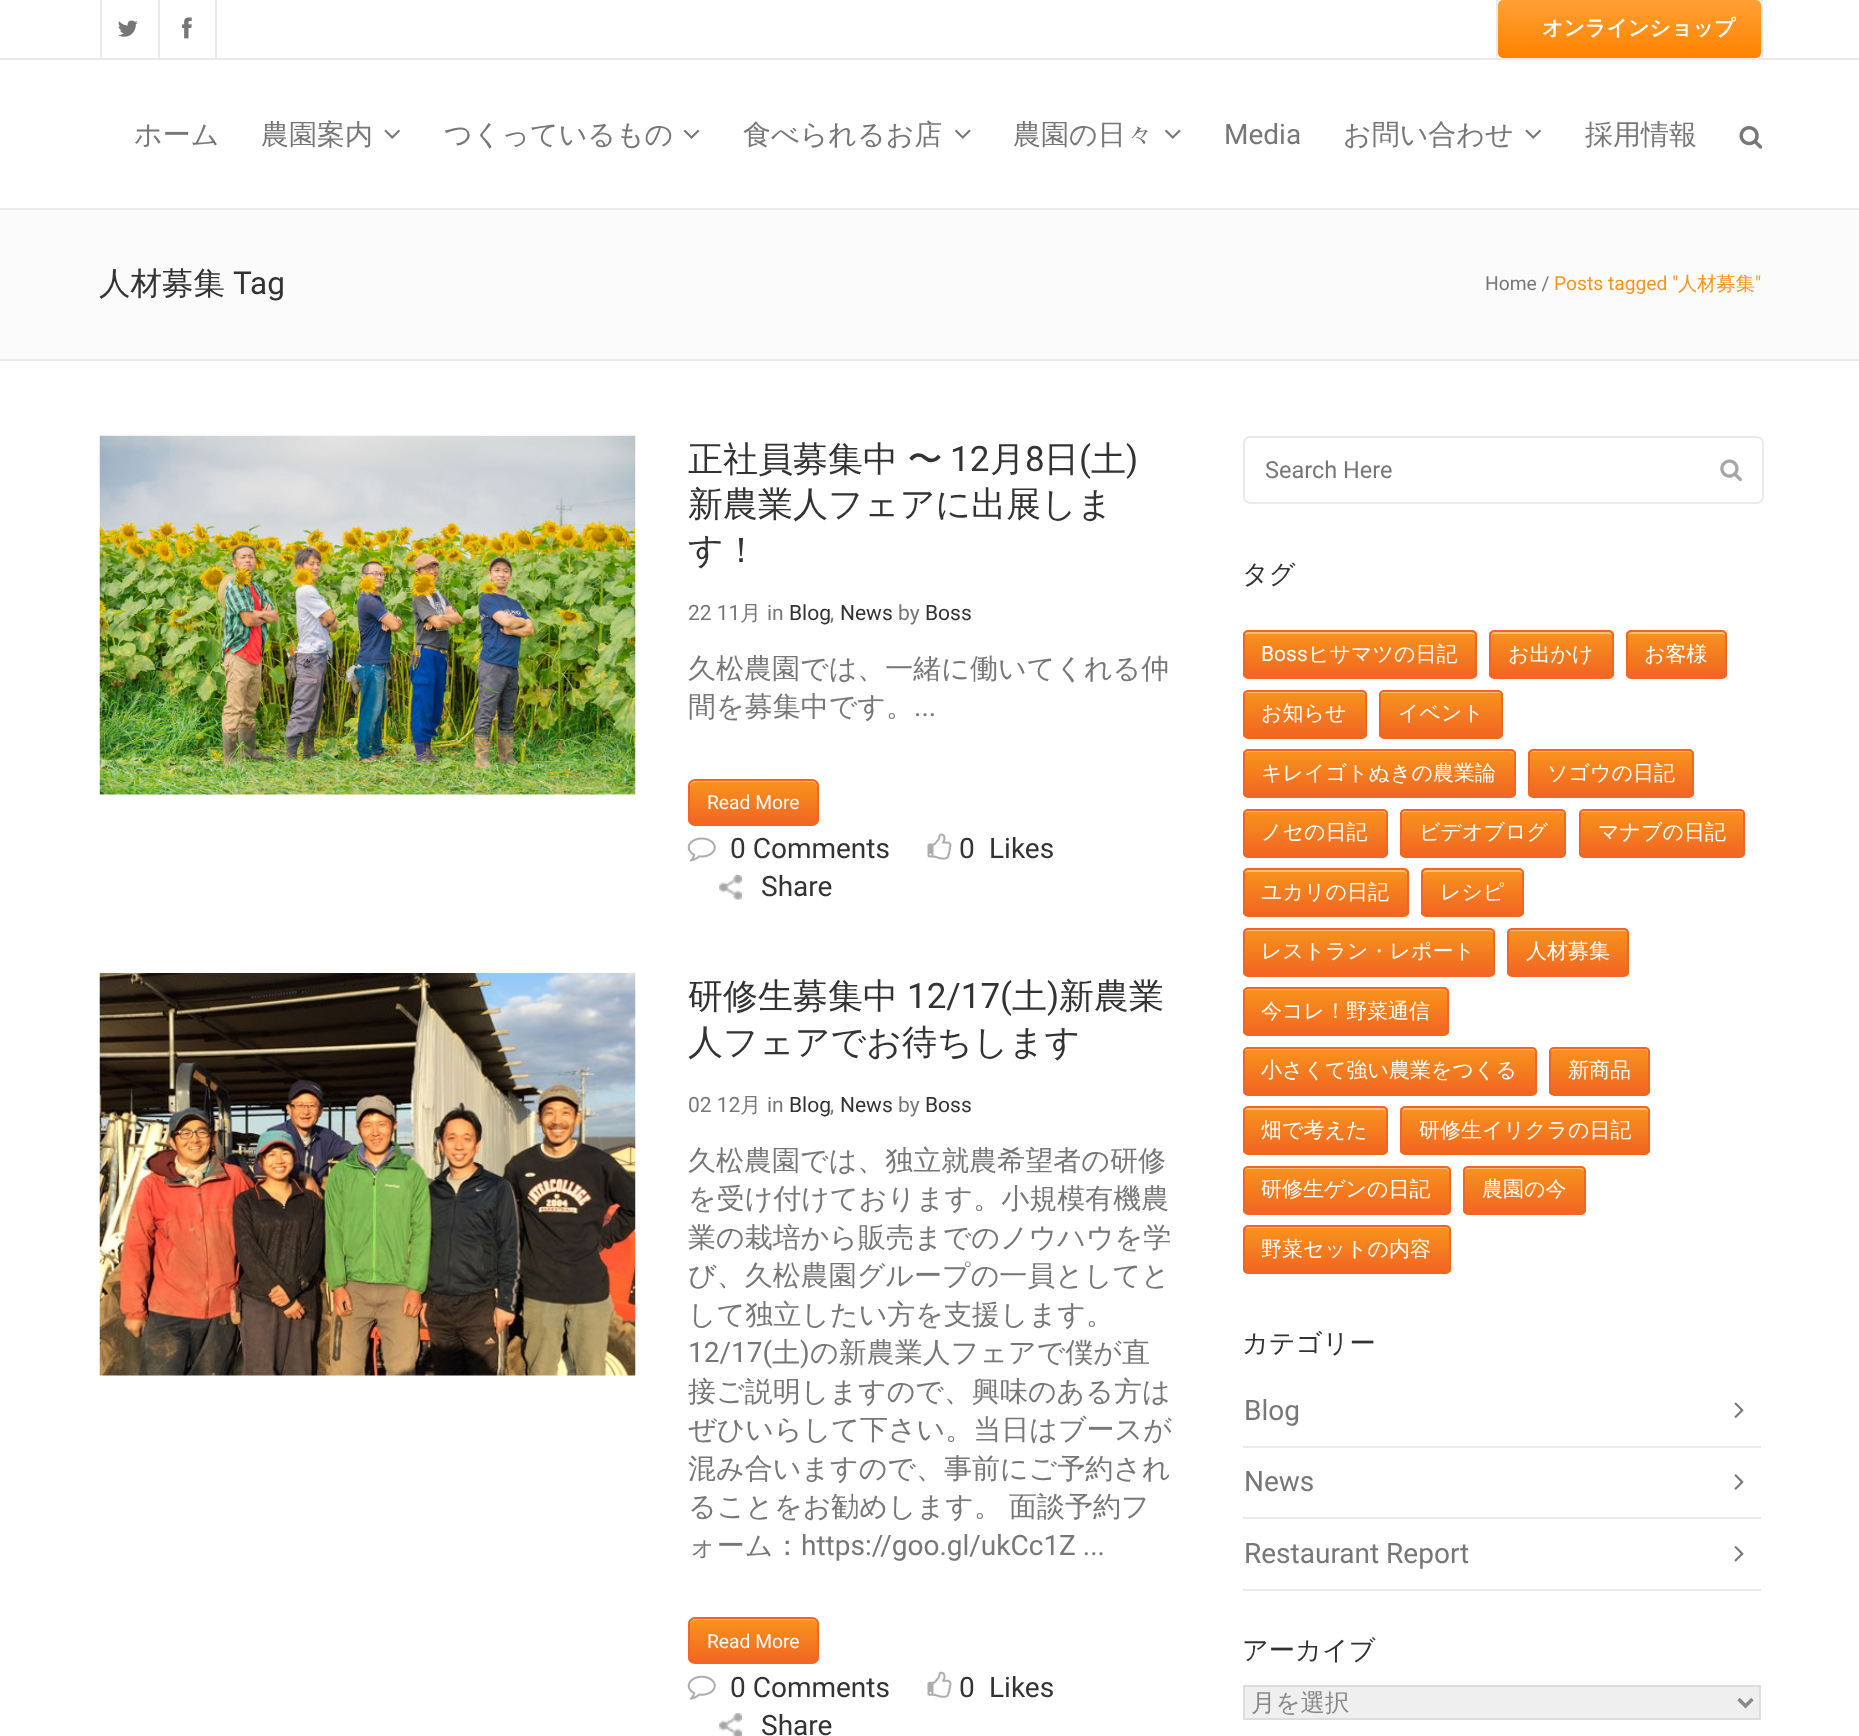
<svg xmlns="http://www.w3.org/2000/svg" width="1859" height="1736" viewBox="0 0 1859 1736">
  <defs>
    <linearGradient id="g1" gradientUnits="userSpaceOnUse" x1="1498" y1="0" x2="1498" y2="58"><stop offset="0" stop-color="rgb(255,160,53)"/><stop offset="1" stop-color="rgb(255,131,0)"/></linearGradient>
    <clipPath id="clip1"><rect x="688" y="779" width="131" height="47" rx="7"/></clipPath>
    <linearGradient id="g2" gradientUnits="userSpaceOnUse" x1="753" y1="824" x2="753" y2="781"><stop offset="0" stop-color="rgb(242,101,34)"/><stop offset="1" stop-color="rgb(247,148,29)"/></linearGradient>
    <clipPath id="clip2"><rect x="688" y="1617" width="131" height="47" rx="7"/></clipPath>
    <linearGradient id="g3" gradientUnits="userSpaceOnUse" x1="753" y1="1663" x2="753" y2="1619"><stop offset="0" stop-color="rgb(242,101,34)"/><stop offset="1" stop-color="rgb(247,148,29)"/></linearGradient>
    <clipPath id="clip3"><rect x="1243" y="630" width="234" height="49" rx="5"/></clipPath>
    <linearGradient id="g4" gradientUnits="userSpaceOnUse" x1="1360" y1="677" x2="1360" y2="632"><stop offset="0" stop-color="rgb(242,101,34)"/><stop offset="1" stop-color="rgb(247,148,29)"/></linearGradient>
    <clipPath id="clip4"><rect x="1489" y="630" width="125" height="49" rx="5"/></clipPath>
    <linearGradient id="g5" gradientUnits="userSpaceOnUse" x1="1551" y1="677" x2="1551" y2="632"><stop offset="0" stop-color="rgb(242,101,34)"/><stop offset="1" stop-color="rgb(247,148,29)"/></linearGradient>
    <clipPath id="clip5"><rect x="1626" y="630" width="101" height="49" rx="5"/></clipPath>
    <linearGradient id="g6" gradientUnits="userSpaceOnUse" x1="1677" y1="677" x2="1677" y2="632"><stop offset="0" stop-color="rgb(242,101,34)"/><stop offset="1" stop-color="rgb(247,148,29)"/></linearGradient>
    <clipPath id="clip6"><rect x="1243" y="690" width="124" height="49" rx="5"/></clipPath>
    <linearGradient id="g7" gradientUnits="userSpaceOnUse" x1="1305" y1="737" x2="1305" y2="691"><stop offset="0" stop-color="rgb(242,101,34)"/><stop offset="1" stop-color="rgb(247,148,29)"/></linearGradient>
    <clipPath id="clip7"><rect x="1379" y="690" width="124" height="49" rx="5"/></clipPath>
    <linearGradient id="g8" gradientUnits="userSpaceOnUse" x1="1441" y1="737" x2="1441" y2="691"><stop offset="0" stop-color="rgb(242,101,34)"/><stop offset="1" stop-color="rgb(247,148,29)"/></linearGradient>
    <clipPath id="clip8"><rect x="1243" y="749" width="273" height="49" rx="5"/></clipPath>
    <linearGradient id="g9" gradientUnits="userSpaceOnUse" x1="1379" y1="796" x2="1379" y2="751"><stop offset="0" stop-color="rgb(242,101,34)"/><stop offset="1" stop-color="rgb(247,148,29)"/></linearGradient>
    <clipPath id="clip9"><rect x="1528" y="749" width="166" height="49" rx="5"/></clipPath>
    <linearGradient id="g10" gradientUnits="userSpaceOnUse" x1="1611" y1="796" x2="1611" y2="751"><stop offset="0" stop-color="rgb(242,101,34)"/><stop offset="1" stop-color="rgb(247,148,29)"/></linearGradient>
    <clipPath id="clip10"><rect x="1243" y="809" width="145" height="49" rx="5"/></clipPath>
    <linearGradient id="g11" gradientUnits="userSpaceOnUse" x1="1315" y1="856" x2="1315" y2="810"><stop offset="0" stop-color="rgb(242,101,34)"/><stop offset="1" stop-color="rgb(247,148,29)"/></linearGradient>
    <clipPath id="clip11"><rect x="1400" y="809" width="166" height="49" rx="5"/></clipPath>
    <linearGradient id="g12" gradientUnits="userSpaceOnUse" x1="1483" y1="856" x2="1483" y2="810"><stop offset="0" stop-color="rgb(242,101,34)"/><stop offset="1" stop-color="rgb(247,148,29)"/></linearGradient>
    <clipPath id="clip12"><rect x="1579" y="809" width="166" height="49" rx="5"/></clipPath>
    <linearGradient id="g13" gradientUnits="userSpaceOnUse" x1="1662" y1="856" x2="1662" y2="810"><stop offset="0" stop-color="rgb(242,101,34)"/><stop offset="1" stop-color="rgb(247,148,29)"/></linearGradient>
    <clipPath id="clip13"><rect x="1243" y="868" width="166" height="49" rx="5"/></clipPath>
    <linearGradient id="g14" gradientUnits="userSpaceOnUse" x1="1326" y1="915" x2="1326" y2="870"><stop offset="0" stop-color="rgb(242,101,34)"/><stop offset="1" stop-color="rgb(247,148,29)"/></linearGradient>
    <clipPath id="clip14"><rect x="1421" y="868" width="103" height="49" rx="5"/></clipPath>
    <linearGradient id="g15" gradientUnits="userSpaceOnUse" x1="1473" y1="915" x2="1473" y2="870"><stop offset="0" stop-color="rgb(242,101,34)"/><stop offset="1" stop-color="rgb(247,148,29)"/></linearGradient>
    <clipPath id="clip15"><rect x="1243" y="928" width="252" height="49" rx="5"/></clipPath>
    <linearGradient id="g16" gradientUnits="userSpaceOnUse" x1="1369" y1="975" x2="1369" y2="929"><stop offset="0" stop-color="rgb(242,101,34)"/><stop offset="1" stop-color="rgb(247,148,29)"/></linearGradient>
    <clipPath id="clip16"><rect x="1507" y="928" width="122" height="49" rx="5"/></clipPath>
    <linearGradient id="g17" gradientUnits="userSpaceOnUse" x1="1568" y1="975" x2="1568" y2="929"><stop offset="0" stop-color="rgb(242,101,34)"/><stop offset="1" stop-color="rgb(247,148,29)"/></linearGradient>
    <clipPath id="clip17"><rect x="1243" y="987" width="206" height="49" rx="5"/></clipPath>
    <linearGradient id="g18" gradientUnits="userSpaceOnUse" x1="1346" y1="1034" x2="1346" y2="989"><stop offset="0" stop-color="rgb(242,101,34)"/><stop offset="1" stop-color="rgb(247,148,29)"/></linearGradient>
    <clipPath id="clip18"><rect x="1243" y="1047" width="294" height="49" rx="5"/></clipPath>
    <linearGradient id="g19" gradientUnits="userSpaceOnUse" x1="1390" y1="1094" x2="1390" y2="1048"><stop offset="0" stop-color="rgb(242,101,34)"/><stop offset="1" stop-color="rgb(247,148,29)"/></linearGradient>
    <clipPath id="clip19"><rect x="1549" y="1047" width="101" height="49" rx="5"/></clipPath>
    <linearGradient id="g20" gradientUnits="userSpaceOnUse" x1="1600" y1="1094" x2="1600" y2="1048"><stop offset="0" stop-color="rgb(242,101,34)"/><stop offset="1" stop-color="rgb(247,148,29)"/></linearGradient>
    <clipPath id="clip20"><rect x="1243" y="1106" width="145" height="49" rx="5"/></clipPath>
    <linearGradient id="g21" gradientUnits="userSpaceOnUse" x1="1315" y1="1153" x2="1315" y2="1108"><stop offset="0" stop-color="rgb(242,101,34)"/><stop offset="1" stop-color="rgb(247,148,29)"/></linearGradient>
    <clipPath id="clip21"><rect x="1400" y="1106" width="250" height="49" rx="5"/></clipPath>
    <linearGradient id="g22" gradientUnits="userSpaceOnUse" x1="1525" y1="1153" x2="1525" y2="1108"><stop offset="0" stop-color="rgb(242,101,34)"/><stop offset="1" stop-color="rgb(247,148,29)"/></linearGradient>
    <clipPath id="clip22"><rect x="1243" y="1166" width="208" height="49" rx="5"/></clipPath>
    <linearGradient id="g23" gradientUnits="userSpaceOnUse" x1="1347" y1="1213" x2="1347" y2="1167"><stop offset="0" stop-color="rgb(242,101,34)"/><stop offset="1" stop-color="rgb(247,148,29)"/></linearGradient>
    <clipPath id="clip23"><rect x="1463" y="1166" width="123" height="49" rx="5"/></clipPath>
    <linearGradient id="g24" gradientUnits="userSpaceOnUse" x1="1524" y1="1213" x2="1524" y2="1167"><stop offset="0" stop-color="rgb(242,101,34)"/><stop offset="1" stop-color="rgb(247,148,29)"/></linearGradient>
    <clipPath id="clip24"><rect x="1243" y="1225" width="208" height="49" rx="5"/></clipPath>
    <linearGradient id="g25" gradientUnits="userSpaceOnUse" x1="1347" y1="1272" x2="1347" y2="1227"><stop offset="0" stop-color="rgb(242,101,34)"/><stop offset="1" stop-color="rgb(247,148,29)"/></linearGradient>
  </defs>
  <rect width="100%" height="100%" fill="rgb(255,255,255)"/>
  <rect x="0" y="58" width="1859" height="2" fill="rgb(234,234,234)"/>
  <rect x="215" y="0" width="2" height="58" fill="rgb(234,234,234)"/>
  <rect x="100" y="0" width="2" height="58" fill="rgb(234,234,234)"/>
  <rect x="158" y="0" width="2" height="58" fill="rgb(234,234,234)"/>
  <image x="118" y="20" width="20" height="17" href="pic1.png"/>
  <image x="182" y="17" width="10" height="22" href="pic2.png"/>
  <rect x="1761" y="0" width="2" height="58" fill="rgb(234,234,234)"/>
  <rect x="1496" y="0" width="2" height="58" fill="rgb(234,234,234)"/>
  <rect x="1498" y="0" width="263" height="58" rx="5" fill="url(#g1)"/>
  <text x="1542" y="35" font-family="WenQuanYi Zen Hei" font-size="21" font-weight="bold" fill="rgb(255,255,255)">オンラインショップ</text>
  <rect x="0" y="208" width="1859" height="2" fill="rgb(234,234,234)"/>
  <g font-family="WenQuanYi Zen Hei" font-size="28" font-weight="500" fill="rgb(119,119,119)">
    <text x="134" y="144">ホーム</text>
    <text x="261" y="144">農園案内</text>
  </g>
  <image x="384" y="129" width="16" height="10" href="pic3.png"/>
  <text x="444" y="144" font-family="WenQuanYi Zen Hei" font-size="28" font-weight="500" fill="rgb(119,119,119)">つくっているもの</text>
  <image x="683" y="129" width="17" height="10" href="pic4.png"/>
  <text x="743" y="144" font-family="WenQuanYi Zen Hei" font-size="28" font-weight="500" fill="rgb(119,119,119)">食べられるお店</text>
  <image x="955" y="129" width="16" height="10" href="pic5.png"/>
  <text x="1013" y="144" font-family="WenQuanYi Zen Hei" font-size="28" font-weight="500" fill="rgb(119,119,119)">農園の日々</text>
  <image x="1165" y="129" width="16" height="10" href="pic5.png"/>
  <text x="1224" y="144" font-family="Roboto" font-size="28" fill="rgb(119,119,119)">Media</text>
  <text x="1343" y="144" font-family="WenQuanYi Zen Hei" font-size="28" font-weight="500" fill="rgb(119,119,119)">お問い合わせ</text>
  <image x="1525" y="129" width="16" height="10" href="pic3.png"/>
  <text x="1585" y="144" font-family="WenQuanYi Zen Hei" font-size="28" font-weight="500" fill="rgb(119,119,119)">採用情報</text>
  <image x="1739" y="126" width="24" height="23" href="pic6.png"/>
  <rect x="0" y="210" width="1859" height="149" fill="rgb(251,251,251)"/>
  <rect x="0" y="359" width="1859" height="2" fill="rgb(234,234,234)"/>
  <text x="99" y="294" font-family="WenQuanYi Zen Hei" font-size="31.5" font-weight="500" fill="rgb(51,51,51)">人材募集</text>
  <text x="233" y="294" font-family="Roboto" font-size="31.5" fill="rgb(51,51,51)">Tag</text>
  <text x="1485" y="290" font-family="Roboto" font-size="19.25" fill="rgb(119,119,119)">Home /</text>
  <text x="1554" y="290" font-family="Roboto" font-size="19.25" fill="rgb(247,148,29)">Posts tagged "</text>
  <text x="1678" y="290" font-family="WenQuanYi Zen Hei" font-size="19.25" font-weight="500" fill="rgb(247,148,29)">人材募集</text>
  <text x="1755" y="290" font-family="Roboto" font-size="19.25" fill="rgb(247,148,29)">"</text>
  <image x="99" y="435" width="537" height="360" href="pic7.png"/>
  <text x="688" y="471" word-spacing="-1" font-family="WenQuanYi Zen Hei" font-size="35" font-weight="500" fill="rgb(51,51,51)">正社員募集中 〜</text>
  <text x="950" y="471" font-family="Roboto" font-size="35" fill="rgb(51,51,51)">12</text>
  <text x="990" y="471" font-family="WenQuanYi Zen Hei" font-size="35" font-weight="500" fill="rgb(51,51,51)">月</text>
  <text x="1025" y="471" font-family="Roboto" font-size="35" fill="rgb(51,51,51)">8</text>
  <text x="1044" y="471" font-family="WenQuanYi Zen Hei" font-size="35" font-weight="500" fill="rgb(51,51,51)">日</text>
  <text x="1079" y="471" font-family="Roboto" font-size="35" fill="rgb(51,51,51)">(</text>
  <text x="1091" y="471" font-family="WenQuanYi Zen Hei" font-size="35" font-weight="500" fill="rgb(51,51,51)">土</text>
  <text x="1126" y="471" font-family="Roboto" font-size="35" fill="rgb(51,51,51)">)</text>
  <g font-family="WenQuanYi Zen Hei" font-size="35" font-weight="500" fill="rgb(51,51,51)">
    <text>
      <tspan x="688" y="516">新農業人フェアに出展しま</tspan>
      <tspan x="688" y="562">す！</tspan>
    </text>
  </g>
  <text x="688" y="620" font-family="Roboto" font-size="21" fill="rgb(119,119,119)">22 11</text>
  <text x="740" y="620" font-family="WenQuanYi Zen Hei" font-size="21" font-weight="500" fill="rgb(119,119,119)">月</text>
  <text x="767" y="620" font-family="Roboto" font-size="21" fill="rgb(119,119,119)">in</text>
  <text x="789" y="620" font-family="Roboto" font-size="21" fill="rgb(51,51,51)">Blog</text>
  <text x="830" y="620" font-family="Roboto" font-size="21" fill="rgb(119,119,119)">,</text>
  <text x="840" y="620" font-family="Roboto" font-size="21" fill="rgb(51,51,51)">News</text>
  <text x="898" y="620" font-family="Roboto" font-size="21" fill="rgb(119,119,119)">by</text>
  <text x="925" y="620" font-family="Roboto" font-size="21" fill="rgb(51,51,51)">Boss</text>
  <g font-family="WenQuanYi Zen Hei" font-size="28" font-weight="500" fill="rgb(119,119,119)">
    <text>
      <tspan x="688" y="678">久松農園では、一緒に働いてくれる仲</tspan>
      <tspan x="688" y="716">間を募集中です。</tspan>
    </text>
  </g>
  <text x="914" y="716" font-family="Roboto" font-size="28" fill="rgb(119,119,119)">...</text>
  <g clip-path="url(#clip1)">
    <rect x="688" y="781" width="131" height="43" fill="url(#g2)"/>
  </g>
  <path d="M695 782H812C815 782 817 785 817 788V786C817 783 815 781 812 781H695C692 781 690 783 690 786V788C690 785 692 782 695 782Z" fill="rgba(255,255,255,0.4)"/>
  <rect x="689" y="780" width="129" height="45" rx="6" fill="none" stroke="rgb(242,101,34)" stroke-width="2"/>
  <text x="707" y="809" font-family="Roboto" font-size="19.25" fill="rgb(255,255,255)">Read More</text>
  <image x="687" y="837" width="29" height="25" href="pic8.png"/>
  <text x="730" y="858" font-family="Roboto" font-size="28" fill="rgb(51,51,51)">0 Comments</text>
  <image x="927" y="833" width="25" height="27" href="pic9.png"/>
  <g font-family="Roboto" font-size="28" fill="rgb(51,51,51)">
    <text x="959" y="858">0</text>
    <text x="989" y="858">Likes</text>
  </g>
  <image x="719" y="875" width="23" height="25" href="pic10.png"/>
  <text x="761" y="896" font-family="Roboto" font-size="28" fill="rgb(51,51,51)">Share</text>
  <image x="99" y="973" width="537" height="403" href="pic11.png"/>
  <text x="688" y="1008" font-family="WenQuanYi Zen Hei" font-size="35" font-weight="500" fill="rgb(51,51,51)">研修生募集中</text>
  <text x="907" y="1008" font-family="Roboto" font-size="35" fill="rgb(51,51,51)">12/17(</text>
  <text x="1012" y="1008" font-family="WenQuanYi Zen Hei" font-size="35" font-weight="500" fill="rgb(51,51,51)">土</text>
  <text x="1047" y="1008" font-family="Roboto" font-size="35" fill="rgb(51,51,51)">)</text>
  <g font-family="WenQuanYi Zen Hei" font-size="35" font-weight="500" fill="rgb(51,51,51)">
    <text x="1059" y="1008">新農業</text>
    <text x="688" y="1054">人フェアでお待ちします</text>
  </g>
  <text x="688" y="1112" font-family="Roboto" font-size="21" fill="rgb(119,119,119)">02 12</text>
  <text x="740" y="1112" font-family="WenQuanYi Zen Hei" font-size="21" font-weight="500" fill="rgb(119,119,119)">月</text>
  <text x="767" y="1112" font-family="Roboto" font-size="21" fill="rgb(119,119,119)">in</text>
  <text x="789" y="1112" font-family="Roboto" font-size="21" fill="rgb(51,51,51)">Blog</text>
  <text x="830" y="1112" font-family="Roboto" font-size="21" fill="rgb(119,119,119)">,</text>
  <text x="840" y="1112" font-family="Roboto" font-size="21" fill="rgb(51,51,51)">News</text>
  <text x="898" y="1112" font-family="Roboto" font-size="21" fill="rgb(119,119,119)">by</text>
  <text x="925" y="1112" font-family="Roboto" font-size="21" fill="rgb(51,51,51)">Boss</text>
  <g font-family="WenQuanYi Zen Hei" font-size="28" font-weight="500" fill="rgb(119,119,119)">
    <text>
      <tspan x="688" y="1170">久松農園では、独立就農希望者の研修</tspan>
      <tspan x="688" y="1208">を受け付けております。小規模有機農</tspan>
      <tspan x="688" y="1247">業の栽培から販売までのノウハウを学</tspan>
      <tspan x="688" y="1285">び、久松農園グループの一員としてと</tspan>
      <tspan x="688" y="1324">して独立したい方を支援します。</tspan>
    </text>
  </g>
  <text x="688" y="1362" font-family="Roboto" font-size="28" fill="rgb(119,119,119)">12/17(</text>
  <text x="772" y="1362" font-family="WenQuanYi Zen Hei" font-size="28" font-weight="500" fill="rgb(119,119,119)">土</text>
  <text x="800" y="1362" font-family="Roboto" font-size="28" fill="rgb(119,119,119)">)</text>
  <g font-family="WenQuanYi Zen Hei" font-size="28" font-weight="500" fill="rgb(119,119,119)">
    <text x="810" y="1362">の新農業人フェアで僕が直</text>
    <text>
      <tspan x="688" y="1401">接ご説明しますので、興味のある方は</tspan>
      <tspan x="688" y="1439">ぜひいらして下さい。当日はブースが</tspan>
      <tspan x="688" y="1478">混み合いますので、事前にご予約され</tspan>
      <tspan x="688" y="1516">ることをお勧めします。</tspan>
    </text>
    <text x="1009" y="1516">面談予約フ</text>
    <text x="688" y="1555">ォーム：</text>
  </g>
  <text x="801" y="1555" font-family="Roboto" font-size="28" fill="rgb(119,119,119)">https://goo.gl/ukCc1Z ...</text>
  <g clip-path="url(#clip2)">
    <rect x="688" y="1619" width="131" height="44" fill="url(#g3)"/>
  </g>
  <path d="M695 1620H812C815 1620 817 1623 817 1626V1624C817 1621 815 1619 812 1619H695C692 1619 690 1621 690 1624V1626C690 1623 692 1620 695 1620Z" fill="rgba(255,255,255,0.4)"/>
  <rect x="689" y="1618" width="129" height="45" rx="6" fill="none" stroke="rgb(242,101,34)" stroke-width="2"/>
  <text x="707" y="1648" font-family="Roboto" font-size="19.25" fill="rgb(255,255,255)">Read More</text>
  <image x="687" y="1675" width="29" height="25" href="pic12.png"/>
  <text x="730" y="1697" font-family="Roboto" font-size="28" fill="rgb(51,51,51)">0 Comments</text>
  <image x="927" y="1671" width="25" height="27" href="pic13.png"/>
  <g font-family="Roboto" font-size="28" fill="rgb(51,51,51)">
    <text x="959" y="1697">0</text>
    <text x="989" y="1697">Likes</text>
  </g>
  <image x="719" y="1713" width="23" height="23" href="pic14.png"/>
  <text x="761" y="1735" font-family="Roboto" font-size="28" fill="rgb(51,51,51)">Share</text>
  <rect x="1244" y="437" width="519" height="66" rx="6" fill="none" stroke="rgb(234,234,234)" stroke-width="2"/>
  <text x="1265" y="478" font-family="Roboto" font-size="23.5" fill="rgb(119,119,119)">Search Here</text>
  <image x="1720" y="459" width="22" height="22" href="pic15.png"/>
  <text x="1242" y="583" font-family="WenQuanYi Zen Hei" font-size="26.25" font-weight="500" fill="rgb(51,51,51)">タグ</text>
  <g clip-path="url(#clip3)">
    <rect x="1243" y="632" width="234" height="45" fill="url(#g4)"/>
  </g>
  <path d="M1248 634H1472C1474 634 1475 635 1475 637C1475 634 1474 632 1471 632H1248C1245 632 1244 634 1244 637C1244 635 1246 634 1248 634Z" fill="rgb(250,190,119)"/>
  <rect x="1244" y="631" width="232" height="47" rx="4" fill="none" stroke="rgb(242,101,34)" stroke-width="2"/>
  <text x="1261" y="661" font-family="Roboto" font-size="21" fill="rgb(255,255,255)">Boss</text>
  <text x="1308" y="661" font-family="WenQuanYi Zen Hei" font-size="21" font-weight="500" fill="rgb(255,255,255)">ヒサマツの日記</text>
  <g clip-path="url(#clip4)">
    <rect x="1489" y="632" width="125" height="45" fill="url(#g5)"/>
  </g>
  <path d="M1494 634H1608C1610 634 1612 635 1612 637C1612 627 1592 632 1589 632H1514C1511 632 1491 627 1491 637C1491 635 1493 634 1494 634Z" fill="rgba(255,255,255,0.4)"/>
  <rect x="1490" y="631" width="123" height="47" rx="4" fill="none" stroke="rgb(242,101,34)" stroke-width="2"/>
  <text x="1508" y="661" font-family="WenQuanYi Zen Hei" font-size="21" font-weight="500" fill="rgb(255,255,255)">お出かけ</text>
  <g clip-path="url(#clip5)">
    <rect x="1626" y="632" width="101" height="45" fill="url(#g6)"/>
  </g>
  <path d="M1631 634H1722C1724 634 1726 635 1726 637C1726 628 1711 632 1707 632H1647C1643 632 1628 628 1628 637C1628 635 1629 634 1631 634Z" fill="rgba(255,255,255,0.4)"/>
  <rect x="1627" y="631" width="99" height="47" rx="4" fill="none" stroke="rgb(242,101,34)" stroke-width="2"/>
  <text x="1644" y="661" font-family="WenQuanYi Zen Hei" font-size="21" font-weight="500" fill="rgb(255,255,255)">お客様</text>
  <g clip-path="url(#clip6)">
    <rect x="1243" y="691" width="124" height="46" fill="url(#g7)"/>
  </g>
  <path d="M1248 693H1362C1363 693 1365 695 1365 696C1365 686 1345 691 1342 691H1267C1264 691 1244 686 1244 696C1244 695 1246 693 1248 693Z" fill="rgba(255,255,255,0.4)"/>
  <rect x="1244" y="691" width="122" height="47" rx="4" fill="none" stroke="rgb(242,101,34)" stroke-width="2"/>
  <text x="1261" y="720" font-family="WenQuanYi Zen Hei" font-size="21" font-weight="500" fill="rgb(255,255,255)">お知らせ</text>
  <g clip-path="url(#clip7)">
    <rect x="1379" y="691" width="124" height="46" fill="url(#g8)"/>
  </g>
  <path d="M1384 693H1498C1500 693 1502 695 1502 696C1502 686 1482 691 1479 691H1404C1401 691 1381 686 1381 696C1381 695 1382 693 1384 693Z" fill="rgba(255,255,255,0.4)"/>
  <rect x="1380" y="691" width="122" height="47" rx="4" fill="none" stroke="rgb(242,101,34)" stroke-width="2"/>
  <text x="1398" y="720" font-family="WenQuanYi Zen Hei" font-size="21" font-weight="500" fill="rgb(255,255,255)">イベント</text>
  <g clip-path="url(#clip8)">
    <rect x="1243" y="751" width="273" height="45" fill="url(#g9)"/>
  </g>
  <path d="M1248 752H1510C1512 752 1514 754 1514 756C1514 753 1513 751 1510 751H1248C1245 751 1244 753 1244 756C1244 754 1246 752 1248 752Z" fill="rgb(250,190,119)"/>
  <rect x="1244" y="750" width="271" height="47" rx="4" fill="none" stroke="rgb(242,101,34)" stroke-width="2"/>
  <text x="1261" y="780" font-family="WenQuanYi Zen Hei" font-size="21" font-weight="500" fill="rgb(255,255,255)">キレイゴトぬきの農業論</text>
  <g clip-path="url(#clip9)">
    <rect x="1528" y="751" width="166" height="45" fill="url(#g10)"/>
  </g>
  <path d="M1533 752H1689C1691 752 1692 754 1692 756C1692 754 1691 752 1689 751H1533C1531 752 1530 754 1530 756C1530 754 1531 752 1533 752Z" fill="rgb(250,190,119)"/>
  <rect x="1529" y="750" width="164" height="47" rx="4" fill="none" stroke="rgb(242,101,34)" stroke-width="2"/>
  <text x="1547" y="780" font-family="WenQuanYi Zen Hei" font-size="21" font-weight="500" fill="rgb(255,255,255)">ソゴウの日記</text>
  <g clip-path="url(#clip10)">
    <rect x="1243" y="810" width="145" height="46" fill="url(#g11)"/>
  </g>
  <path d="M1248 812H1382C1384 812 1386 814 1386 816V814C1386 812 1384 810 1382 810H1248C1246 810 1244 812 1244 814V816C1244 814 1246 812 1248 812Z" fill="rgba(255,255,255,0.4)"/>
  <rect x="1244" y="810" width="143" height="47" rx="4" fill="none" stroke="rgb(242,101,34)" stroke-width="2"/>
  <text x="1261" y="839" font-family="WenQuanYi Zen Hei" font-size="21" font-weight="500" fill="rgb(255,255,255)">ノセの日記</text>
  <g clip-path="url(#clip11)">
    <rect x="1400" y="810" width="166" height="46" fill="url(#g12)"/>
  </g>
  <path d="M1405 812H1561C1563 812 1564 814 1564 816V855C1565 854 1565 853 1565 852V814C1565 812 1563 810 1561 810H1406C1404 810 1402 812 1402 814V816C1402 814 1403 812 1405 812Z" fill="rgba(255,255,255,0.4)"/>
  <rect x="1401" y="810" width="164" height="47" rx="4" fill="none" stroke="rgb(242,101,34)" stroke-width="2"/>
  <text x="1419" y="839" font-family="WenQuanYi Zen Hei" font-size="21" font-weight="500" fill="rgb(255,255,255)">ビデオブログ</text>
  <g clip-path="url(#clip12)">
    <rect x="1579" y="810" width="166" height="46" fill="url(#g13)"/>
  </g>
  <path d="M1584 812H1740C1741 812 1743 814 1743 816V814C1743 812 1741 810 1739 810H1584C1582 810 1580 812 1580 814V816C1580 814 1582 812 1584 812Z" fill="rgba(255,255,255,0.4)"/>
  <rect x="1580" y="810" width="164" height="47" rx="4" fill="none" stroke="rgb(242,101,34)" stroke-width="2"/>
  <text x="1598" y="839" font-family="WenQuanYi Zen Hei" font-size="21" font-weight="500" fill="rgb(255,255,255)">マナブの日記</text>
  <g clip-path="url(#clip13)">
    <rect x="1243" y="870" width="166" height="45" fill="url(#g14)"/>
  </g>
  <path d="M1248 872H1404C1405 872 1407 873 1407 875C1407 873 1406 871 1404 870H1247C1245 871 1244 873 1244 875C1244 873 1246 872 1248 872Z" fill="rgb(250,190,119)"/>
  <rect x="1244" y="869" width="164" height="47" rx="4" fill="none" stroke="rgb(242,101,34)" stroke-width="2"/>
  <text x="1261" y="899" font-family="WenQuanYi Zen Hei" font-size="21" font-weight="500" fill="rgb(255,255,255)">ユカリの日記</text>
  <g clip-path="url(#clip14)">
    <rect x="1421" y="870" width="103" height="45" fill="url(#g15)"/>
  </g>
  <path d="M1426 872H1519C1521 872 1522 873 1522 875V914C1523 913 1523 912 1523 911V874C1523 872 1521 870 1519 870H1427C1425 870 1423 872 1423 874V875C1423 873 1424 872 1426 872Z" fill="rgba(255,255,255,0.4)"/>
  <rect x="1422" y="869" width="101" height="47" rx="4" fill="none" stroke="rgb(242,101,34)" stroke-width="2"/>
  <text x="1440" y="899" font-family="WenQuanYi Zen Hei" font-size="21" font-weight="500" fill="rgb(255,255,255)">レシピ</text>
  <g clip-path="url(#clip15)">
    <rect x="1243" y="929" width="252" height="46" fill="url(#g16)"/>
  </g>
  <path d="M1248 931H1489C1491 931 1493 933 1493 934V933C1493 931 1491 929 1489 929H1248C1246 929 1244 931 1244 933V934C1244 933 1246 931 1248 931Z" fill="rgba(255,255,255,0.4)"/>
  <rect x="1244" y="929" width="250" height="47" rx="4" fill="none" stroke="rgb(242,101,34)" stroke-width="2"/>
  <text x="1261" y="958" font-family="WenQuanYi Zen Hei" font-size="21" font-weight="500" fill="rgb(255,255,255)">レストラン・レポート</text>
  <g clip-path="url(#clip16)">
    <rect x="1507" y="929" width="122" height="46" fill="url(#g17)"/>
  </g>
  <path d="M1512 931H1624C1626 931 1628 933 1628 934C1628 924 1609 929 1606 929H1512L1510 930L1509 932Z" fill="rgba(255,255,255,0.4)"/>
  <rect x="1508" y="929" width="120" height="47" rx="4" fill="none" stroke="rgb(242,101,34)" stroke-width="2"/>
  <text x="1526" y="958" font-family="WenQuanYi Zen Hei" font-size="21" font-weight="500" fill="rgb(255,255,255)">人材募集</text>
  <g clip-path="url(#clip17)">
    <rect x="1243" y="989" width="206" height="45" fill="url(#g18)"/>
  </g>
  <path d="M1248 990H1444C1446 990 1447 992 1447 994V993C1447 991 1445 989 1443 989H1248C1246 989 1244 991 1244 993V994C1244 992 1246 990 1248 990Z" fill="rgb(250,190,119)"/>
  <rect x="1244" y="988" width="204" height="47" rx="4" fill="none" stroke="rgb(242,101,34)" stroke-width="2"/>
  <text x="1261" y="1018" font-family="WenQuanYi Zen Hei" font-size="21" font-weight="500" fill="rgb(255,255,255)">今コレ！野菜通信</text>
  <g clip-path="url(#clip18)">
    <rect x="1243" y="1048" width="294" height="46" fill="url(#g19)"/>
  </g>
  <path d="M1248 1050H1531C1533 1050 1535 1052 1535 1054V1052C1535 1050 1533 1048 1531 1048H1248C1246 1048 1244 1050 1244 1052V1054C1244 1052 1246 1050 1248 1050Z" fill="rgba(255,255,255,0.4)"/>
  <rect x="1244" y="1048" width="292" height="47" rx="4" fill="none" stroke="rgb(242,101,34)" stroke-width="2"/>
  <text x="1261" y="1077" font-family="WenQuanYi Zen Hei" font-size="21" font-weight="500" fill="rgb(255,255,255)">小さくて強い農業をつくる</text>
  <g clip-path="url(#clip19)">
    <rect x="1549" y="1048" width="101" height="46" fill="url(#g20)"/>
  </g>
  <path d="M1554 1050H1630C1647 1050 1648 1046 1648 1060V1093C1649 1092 1649 1091 1649 1090V1052C1649 1050 1647 1048 1645 1048H1555C1553 1048 1551 1050 1551 1051Z" fill="rgba(255,255,255,0.4)"/>
  <rect x="1550" y="1048" width="99" height="47" rx="4" fill="none" stroke="rgb(242,101,34)" stroke-width="2"/>
  <text x="1568" y="1077" font-family="WenQuanYi Zen Hei" font-size="21" font-weight="500" fill="rgb(255,255,255)">新商品</text>
  <g clip-path="url(#clip20)">
    <rect x="1243" y="1108" width="145" height="45" fill="url(#g21)"/>
  </g>
  <path d="M1248 1110H1382C1384 1110 1386 1111 1386 1113V1112C1386 1110 1384 1108 1382 1108H1248C1246 1108 1244 1110 1244 1112V1113C1244 1111 1246 1110 1248 1110Z" fill="rgb(250,190,119)"/>
  <rect x="1244" y="1107" width="143" height="47" rx="4" fill="none" stroke="rgb(242,101,34)" stroke-width="2"/>
  <text x="1261" y="1137" font-family="WenQuanYi Zen Hei" font-size="21" font-weight="500" fill="rgb(255,255,255)">畑で考えた</text>
  <g clip-path="url(#clip21)">
    <rect x="1400" y="1108" width="250" height="45" fill="url(#g22)"/>
  </g>
  <path d="M1405 1110H1645C1647 1110 1648 1111 1648 1113V1152C1649 1151 1649 1150 1649 1149V1112C1649 1110 1647 1108 1645 1108H1406C1404 1108 1402 1110 1402 1112V1113C1402 1111 1403 1110 1405 1110Z" fill="rgba(255,255,255,0.4)"/>
  <rect x="1401" y="1107" width="248" height="47" rx="4" fill="none" stroke="rgb(242,101,34)" stroke-width="2"/>
  <text x="1419" y="1137" font-family="WenQuanYi Zen Hei" font-size="21" font-weight="500" fill="rgb(255,255,255)">研修生イリクラの日記</text>
  <g clip-path="url(#clip22)">
    <rect x="1243" y="1167" width="208" height="46" fill="url(#g23)"/>
  </g>
  <path d="M1248 1169H1446C1447 1169 1449 1171 1449 1172V1171C1449 1169 1447 1167 1445 1167H1248C1246 1167 1244 1169 1244 1171V1172C1244 1171 1246 1169 1248 1169Z" fill="rgba(255,255,255,0.4)"/>
  <rect x="1244" y="1167" width="206" height="47" rx="4" fill="none" stroke="rgb(242,101,34)" stroke-width="2"/>
  <text x="1261" y="1196" font-family="WenQuanYi Zen Hei" font-size="21" font-weight="500" fill="rgb(255,255,255)">研修生ゲンの日記</text>
  <g clip-path="url(#clip23)">
    <rect x="1463" y="1167" width="123" height="46" fill="url(#g24)"/>
  </g>
  <path d="M1468 1169H1580C1582 1169 1584 1171 1584 1172C1584 1162 1565 1167 1562 1167H1488C1484 1167 1465 1162 1465 1172C1465 1171 1466 1169 1468 1169Z" fill="rgba(255,255,255,0.4)"/>
  <rect x="1464" y="1167" width="121" height="47" rx="4" fill="none" stroke="rgb(242,101,34)" stroke-width="2"/>
  <text x="1482" y="1196" font-family="WenQuanYi Zen Hei" font-size="21" font-weight="500" fill="rgb(255,255,255)">農園の今</text>
  <g clip-path="url(#clip24)">
    <rect x="1243" y="1227" width="208" height="45" fill="url(#g25)"/>
  </g>
  <path d="M1248 1228H1446L1448 1229L1449 1232V1231C1449 1229 1447 1227 1445 1227H1248C1246 1227 1244 1229 1244 1231V1232C1244 1230 1246 1228 1248 1228Z" fill="rgb(250,190,119)"/>
  <rect x="1244" y="1226" width="206" height="47" rx="4" fill="none" stroke="rgb(242,101,34)" stroke-width="2"/>
  <text x="1261" y="1256" font-family="WenQuanYi Zen Hei" font-size="21" font-weight="500" fill="rgb(255,255,255)">野菜セットの内容</text>
  <text x="1242" y="1352" font-family="WenQuanYi Zen Hei" font-size="26.25" font-weight="500" fill="rgb(51,51,51)">カテゴリー</text>
  <rect x="1243" y="1446" width="518" height="2" fill="rgb(234,234,234)"/>
  <text x="1244" y="1420" font-family="Roboto" font-size="28" fill="rgb(119,119,119)">Blog</text>
  <image x="1734" y="1402" width="10" height="16" href="pic16.png"/>
  <rect x="1243" y="1517" width="518" height="2" fill="rgb(234,234,234)"/>
  <text x="1244" y="1491" font-family="Roboto" font-size="28" fill="rgb(119,119,119)">News</text>
  <image x="1734" y="1474" width="10" height="16" href="pic17.png"/>
  <rect x="1243" y="1589" width="518" height="2" fill="rgb(234,234,234)"/>
  <text x="1244" y="1563" font-family="Roboto" font-size="28" fill="rgb(119,119,119)">Restaurant Report</text>
  <image x="1734" y="1546" width="10" height="16" href="pic18.png"/>
  <text x="1242" y="1659" font-family="WenQuanYi Zen Hei" font-size="26.25" font-weight="500" fill="rgb(51,51,51)">アーカイブ</text>
  <rect x="1244" y="1686" width="516" height="33" fill="rgb(239,239,239)" stroke="rgb(221,221,221)" stroke-width="2"/>
  <path d="M1738.5 1699L1745.5 1706L1752.5 1699" fill="none" stroke="rgb(136,136,136)" stroke-width="3.5"/>
  <text x="1251" y="1711" font-family="WenQuanYi Zen Hei" font-size="24.5" font-weight="500" fill="rgb(136,136,136)">月を選択</text>
</svg>
